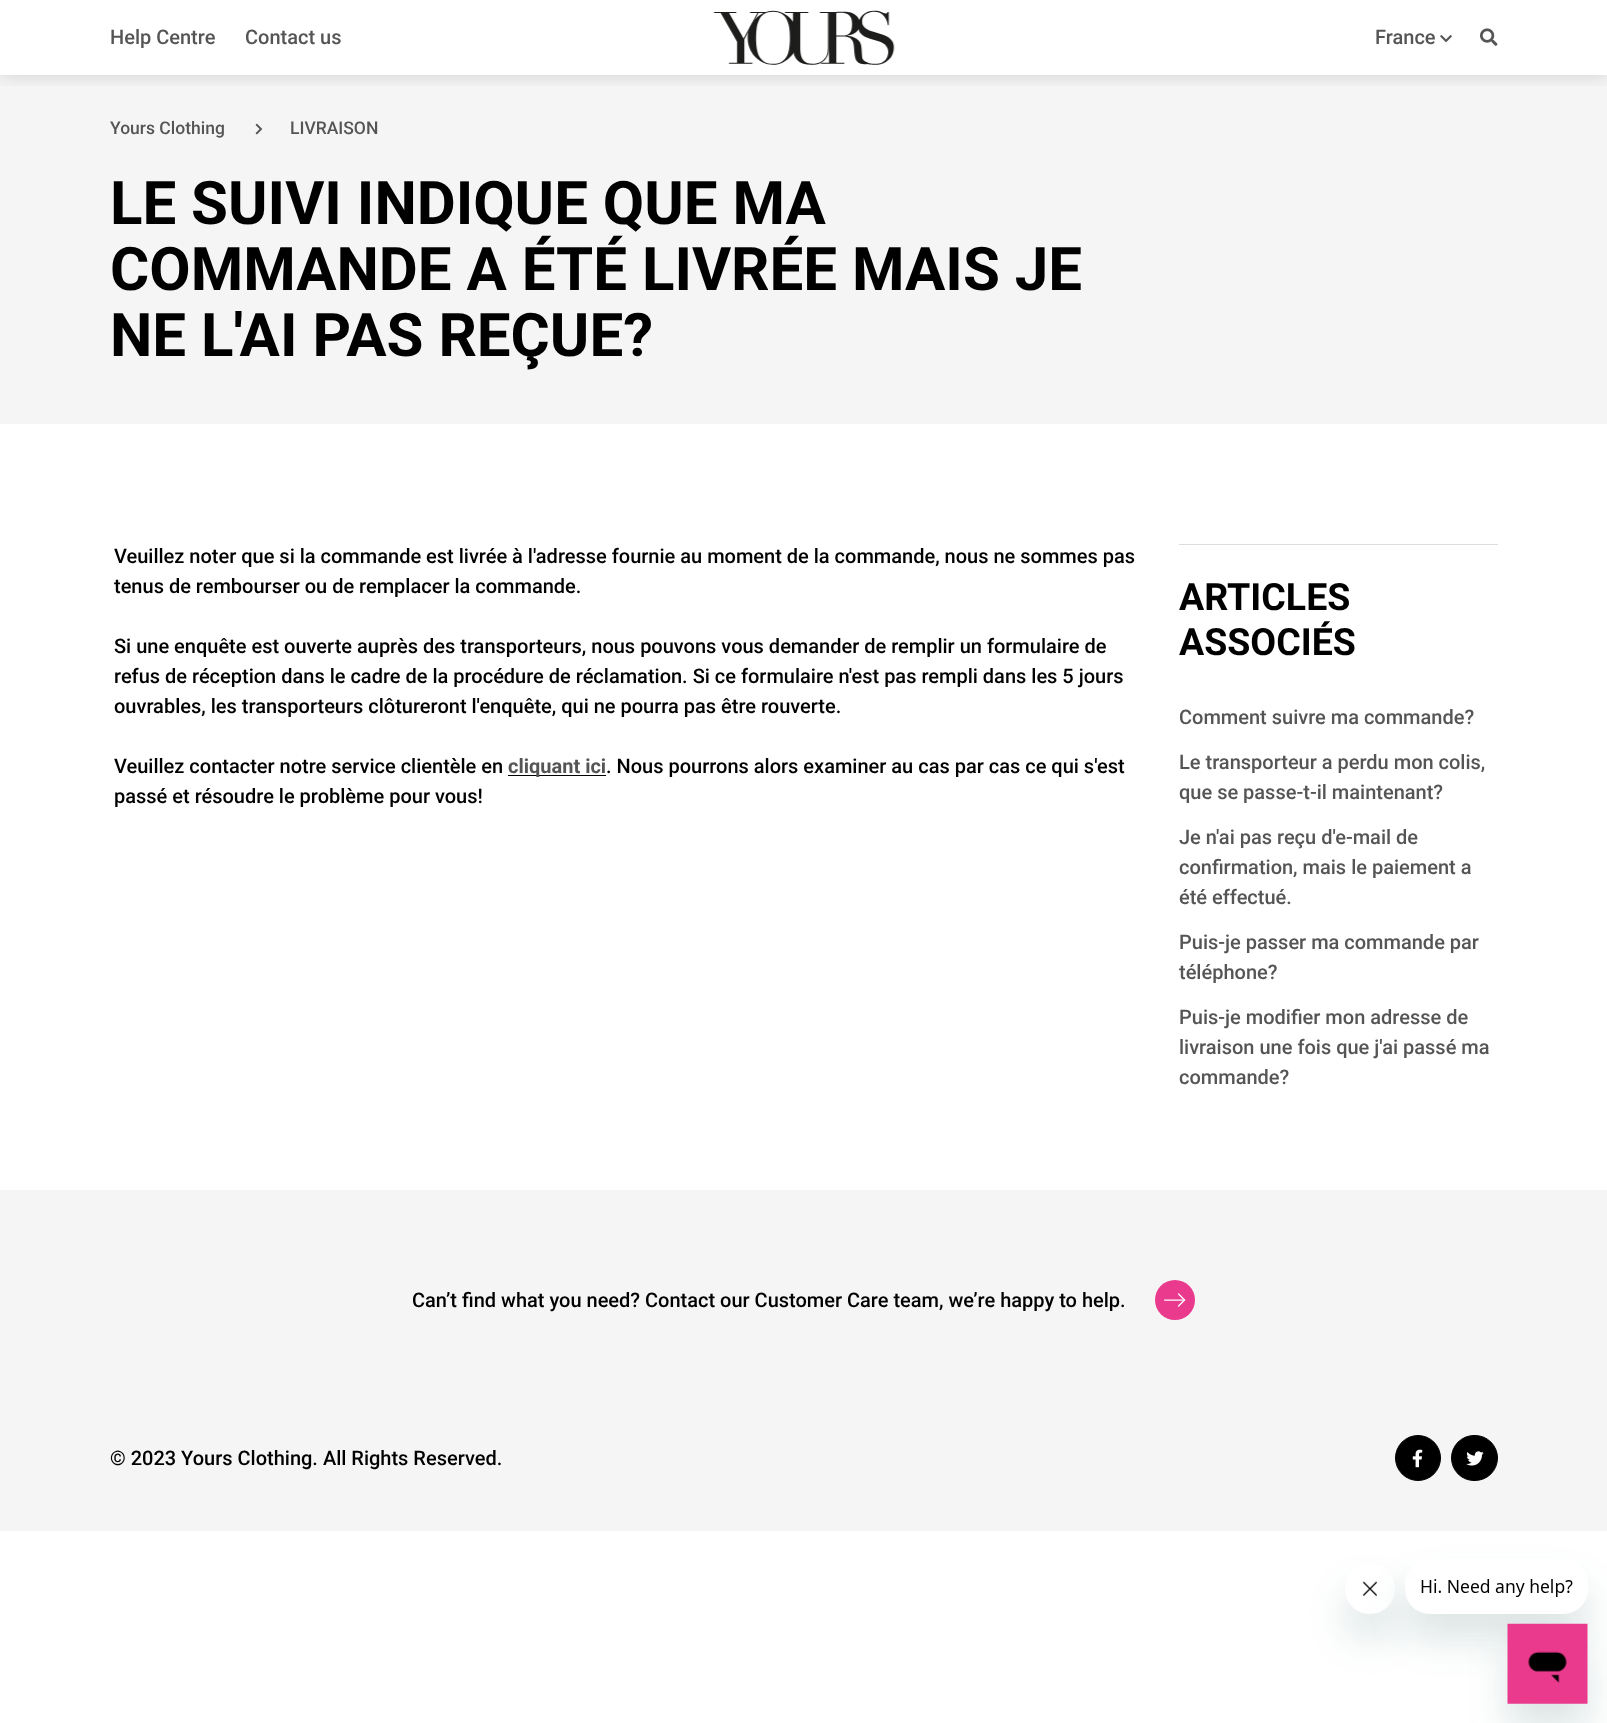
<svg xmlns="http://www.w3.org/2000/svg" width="1607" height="1723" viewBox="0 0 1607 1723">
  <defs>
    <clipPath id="clip1"><rect x="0" y="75" width="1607" height="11"/></clipPath>
    <clipPath id="clip2"><path d="M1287 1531H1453V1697H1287ZM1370 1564C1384 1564 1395 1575 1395 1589C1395 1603 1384 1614 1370 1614C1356 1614 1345 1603 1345 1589C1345 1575 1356 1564 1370 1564Z" clip-rule="evenodd"/></clipPath>
    <clipPath id="clip3"><path d="M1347 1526H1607V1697H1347ZM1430 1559H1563C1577 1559 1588 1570 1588 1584V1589C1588 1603 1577 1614 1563 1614H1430C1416 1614 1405 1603 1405 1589V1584C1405 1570 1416 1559 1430 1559Z" clip-rule="evenodd"/></clipPath>
  </defs>
  <rect width="100%" height="100%" fill="rgb(255,255,255)"/>
  <rect x="0" y="75" width="1607" height="349" fill="rgb(245,245,245)"/>
  <g clip-path="url(#clip1)">
    <rect x="0" y="0" width="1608" height="75" fill="rgba(0,0,0,0.15)" filter="blur(9.5px)"/>
  </g>
  <g font-family="Roboto" font-size="20" font-weight="500" fill="rgb(85,85,85)">
    <text x="110" y="44">Help Centre</text>
    <text x="245" y="44">Contact us</text>
  </g>
  <image x="713" y="10" width="182" height="55" href="pic1.png"/>
  <text x="1375" y="44" font-family="Roboto" font-size="20" font-weight="500" fill="rgb(85,85,85)">France</text>
  <image x="1440" y="35" width="12" height="8" href="pic2.png"/>
  <image x="1480" y="28" width="18" height="18" href="pic3.png"/>
  <text x="110" y="134" font-family="Roboto" font-size="17.5" font-weight="500" fill="rgb(85,85,85)">Yours Clothing</text>
  <image x="255" y="123" width="8" height="12" href="pic4.png"/>
  <text x="290" y="134" font-family="Roboto" font-size="17.5" font-weight="500" fill="rgb(85,85,85)">LIVRAISON</text>
  <g font-family="Roboto" font-size="60" font-weight="bold" fill="rgb(0,0,0)">
    <text>
      <tspan x="110" y="224">LE SUIVI INDIQUE QUE MA</tspan>
      <tspan x="110" y="290">COMMANDE A ÉTÉ LIVRÉE MAIS JE</tspan>
      <tspan x="110" y="356">NE L'AI PAS REÇUE?</tspan>
    </text>
  </g>
  <g font-family="Roboto" font-size="20" font-weight="500" fill="rgb(0,0,0)">
    <text>
      <tspan x="114" y="563">Veuillez noter que si la commande est livrée à l'adresse fournie au moment de la commande, nous ne sommes pas</tspan>
      <tspan x="114" y="593">tenus de rembourser ou de remplacer la commande.</tspan>
    </text>
    <text>
      <tspan x="114" y="653">Si une enquête est ouverte auprès des transporteurs, nous pouvons vous demander de remplir un formulaire de</tspan>
      <tspan x="114" y="683">refus de réception dans le cadre de la procédure de réclamation. Si ce formulaire n'est pas rempli dans les 5 jours</tspan>
      <tspan x="114" y="713">ouvrables, les transporteurs clôtureront l'enquête, qui ne pourra pas être rouverte.</tspan>
    </text>
    <text x="114" y="773">Veuillez contacter notre service clientèle en</text>
  </g>
  <rect x="508" y="775" width="98" height="1" fill="rgb(0,0,0)"/>
  <text x="508" y="773" font-family="Roboto" font-size="20" font-weight="bold" fill="rgb(85,85,85)">cliquant ici</text>
  <g font-family="Roboto" font-size="20" font-weight="500" fill="rgb(0,0,0)">
    <text x="606" y="773">. Nous pourrons alors examiner au cas par cas ce qui s'est</text>
    <text x="114" y="803">passé et résoudre le problème pour vous!</text>
  </g>
  <rect x="1179" y="544" width="319" height="1" fill="rgb(221,221,221)"/>
  <g font-family="Roboto" font-size="37.5" font-weight="bold" fill="rgb(0,0,0)">
    <text>
      <tspan x="1179" y="610">ARTICLES</tspan>
      <tspan x="1179" y="655">ASSOCIÉS</tspan>
    </text>
  </g>
  <g font-family="Roboto" font-size="20" font-weight="500" fill="rgb(85,85,85)">
    <text x="1179" y="724">Comment suivre ma commande?</text>
    <text>
      <tspan x="1179" y="769">Le transporteur a perdu mon colis,</tspan>
      <tspan x="1179" y="799">que se passe-t-il maintenant?</tspan>
    </text>
    <text>
      <tspan x="1179" y="844">Je n'ai pas reçu d'e-mail de</tspan>
      <tspan x="1179" y="874">confirmation, mais le paiement a</tspan>
      <tspan x="1179" y="904">été effectué.</tspan>
    </text>
    <text>
      <tspan x="1179" y="949">Puis-je passer ma commande par</tspan>
      <tspan x="1179" y="979">téléphone?</tspan>
    </text>
    <text>
      <tspan x="1179" y="1024">Puis-je modifier mon adresse de</tspan>
      <tspan x="1179" y="1054">livraison une fois que j'ai passé ma</tspan>
      <tspan x="1179" y="1084">commande?</tspan>
    </text>
  </g>
  <rect x="0" y="1190" width="1607" height="341" fill="rgb(245,245,245)"/>
  <text x="412" y="1307" font-family="Roboto" font-size="20" font-weight="500" fill="rgb(0,0,0)">Can’t find what you need? Contact our Customer Care team, we’re happy to help.</text>
  <image x="1155" y="1280" width="40" height="40" href="pic5.png"/>
  <text x="110" y="1465" font-family="Roboto" font-size="20" font-weight="500" fill="rgb(0,0,0)">© 2023 Yours Clothing. All Rights Reserved.</text>
  <circle cx="1418" cy="1458" r="22.5" fill="rgb(0,0,0)" stroke="rgb(0,0,0)"/>
  <image x="1412" y="1449" width="11" height="19" href="pic6.png"/>
  <rect x="1451.5" y="1435.5" width="46" height="45" rx="22.5" fill="rgb(0,0,0)" stroke="rgb(0,0,0)"/>
  <image x="1466" y="1451" width="18" height="15" href="pic7.png"/>
  <g clip-path="url(#clip2)">
    <rect x="1345" y="1589" width="50" height="50" rx="25" fill="rgba(23,73,77,0.15)" filter="blur(19px)"/>
  </g>
  <image x="1363" y="1581" width="14" height="15" href="pic9.png"/>
  <g clip-path="url(#clip3)">
    <rect x="1405" y="1584" width="183" height="55" rx="25" fill="rgba(23,73,77,0.15)" filter="blur(19px)"/>
  </g>
  <image x="1406" y="1579" width="167" height="31" href="pic8.png"/>
  <rect x="1508" y="1649" width="80" height="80" fill="rgba(23,73,77,0.15)" filter="blur(19px)"/>
  <image x="1507" y="1623" width="81" height="81" href="pic10.png"/>
</svg>
